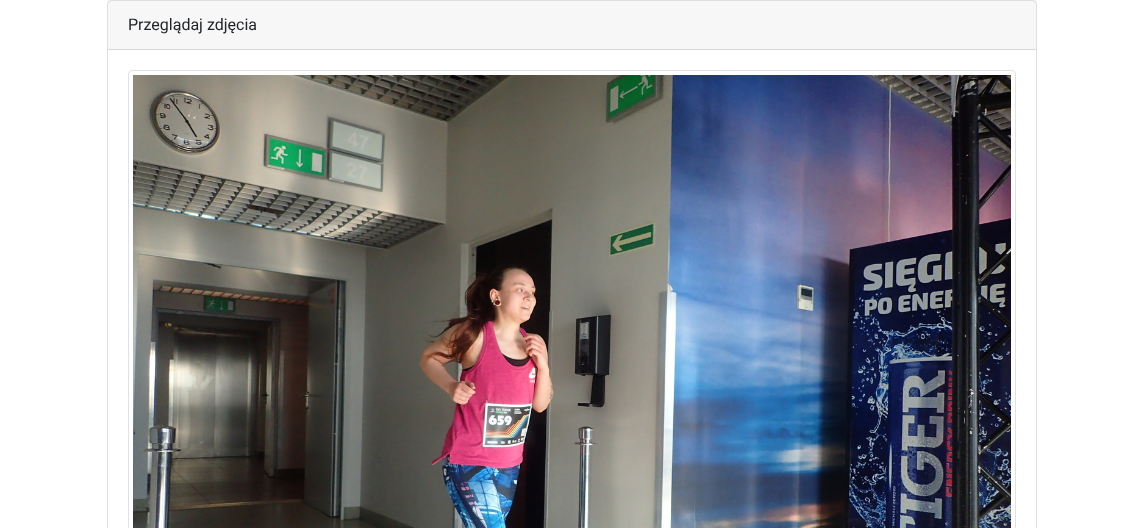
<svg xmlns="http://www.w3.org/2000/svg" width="1143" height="528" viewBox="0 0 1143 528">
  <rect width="100%" height="100%" fill="rgb(255,255,255)"/>
  <rect x="107.5" y="0.5" width="929" height="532" rx="3.5" fill="none" stroke="rgb(223,223,223)"/>
  <rect x="108" y="1" width="928" height="48" fill="rgba(0,0,0,0.03)"/>
  <rect x="108" y="49" width="928" height="1" fill="rgb(216,216,216)"/>
  <text x="128" y="30" font-family="Roboto" font-size="16" fill="rgb(33,37,41)">Przeglądaj zdjęcia</text>
  <rect x="128.5" y="70.5" width="887" height="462" rx="3.5" fill="none" stroke="rgb(222,226,230)"/>
  <image x="133" y="75" width="878" height="453" href="pic1.png"/>
</svg>
